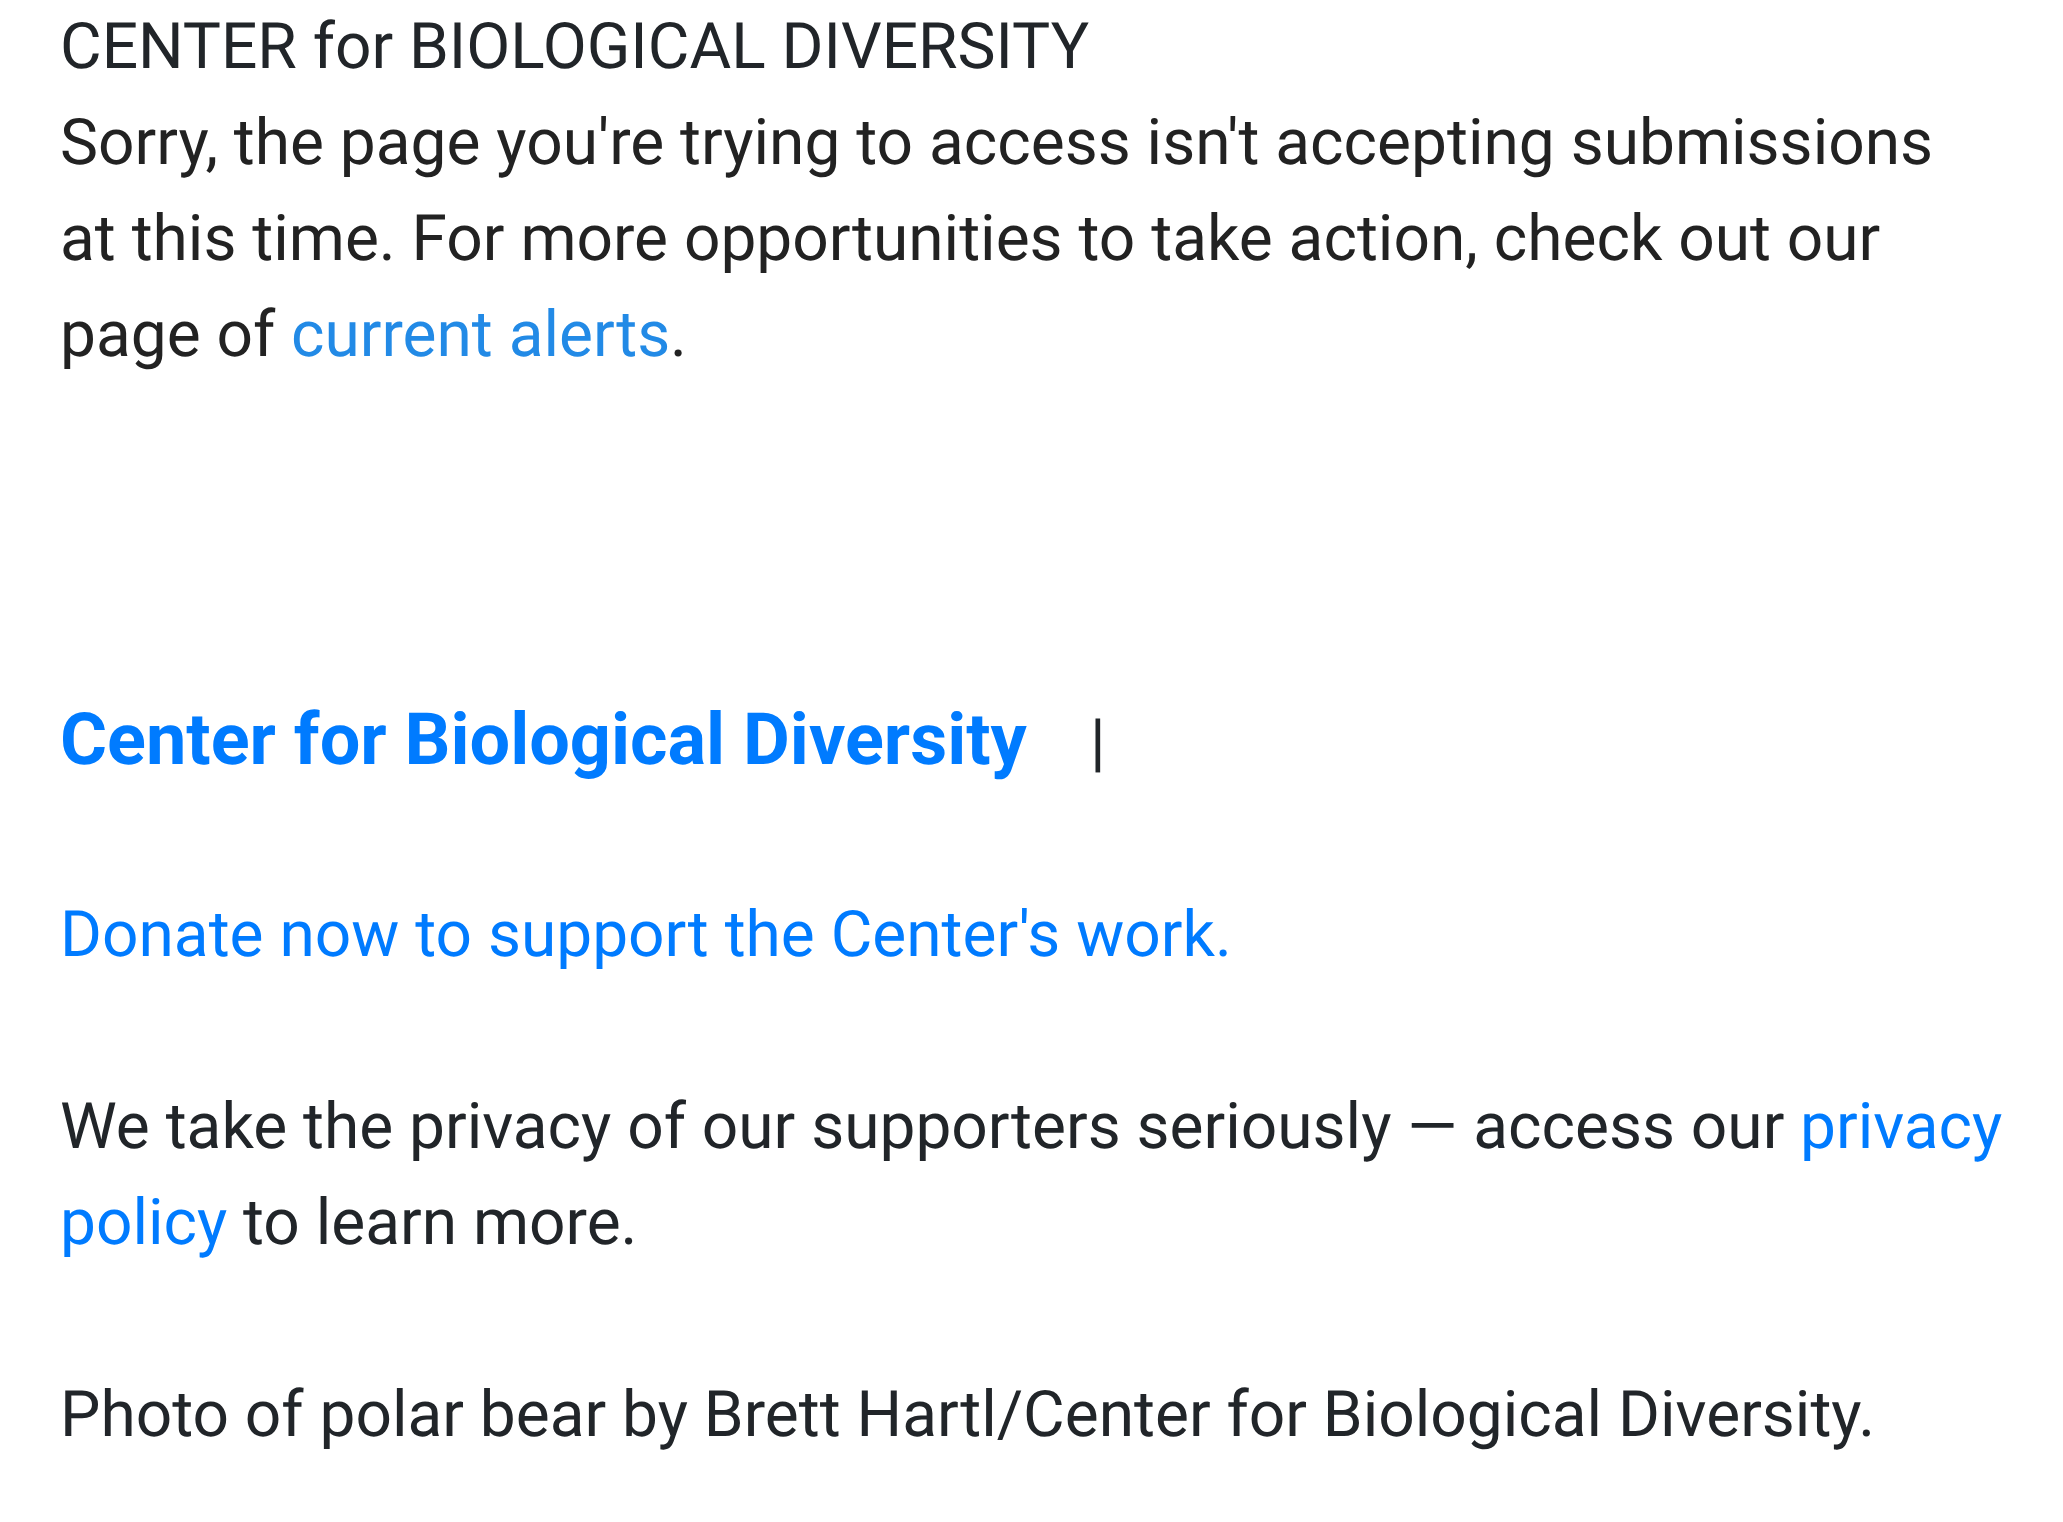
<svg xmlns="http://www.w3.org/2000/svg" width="2063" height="1522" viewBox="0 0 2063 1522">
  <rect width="100%" height="100%" fill="rgb(255,255,255)"/>
  <text x="60" y="68" font-family="Roboto" font-size="64" fill="rgb(33,37,41)">CENTER for BIOLOGICAL DIVERSITY</text>
  <g font-family="Roboto" font-size="64" fill="rgb(34,34,34)">
    <text>
      <tspan x="60" y="164">Sorry, the page you're trying to access isn't accepting submissions</tspan>
      <tspan x="60" y="260">at this time. For more opportunities to take action, check out our</tspan>
      <tspan x="60" y="356">page of</tspan>
    </text>
  </g>
  <text x="291" y="356" font-family="Roboto" font-size="64" fill="rgb(34,138,230)">current alerts</text>
  <text x="670" y="356" font-family="Roboto" font-size="64" fill="rgb(34,34,34)">.</text>
  <text x="60" y="764" font-family="Roboto" font-size="72" font-weight="bold" fill="rgb(0,123,255)">Center for Biological Diversity</text>
  <text x="1090" y="764" font-family="Roboto" font-size="64" fill="rgb(33,37,41)">|</text>
  <text x="60" y="956" font-family="Roboto" font-size="64" fill="rgb(0,123,255)">Donate now to support the Center's work.</text>
  <text x="60" y="1148" font-family="Roboto" font-size="64" fill="rgb(33,37,41)">We take the privacy of our supporters seriously — access our</text>
  <g font-family="Roboto" font-size="64" fill="rgb(0,123,255)">
    <text x="1800" y="1148">privacy</text>
    <text x="60" y="1244">policy</text>
  </g>
  <g font-family="Roboto" font-size="64" fill="rgb(33,37,41)">
    <text x="243" y="1244">to learn more.</text>
    <text x="60" y="1436">Photo of polar bear by Brett Hartl/Center for Biological Diversity.</text>
  </g>
</svg>
